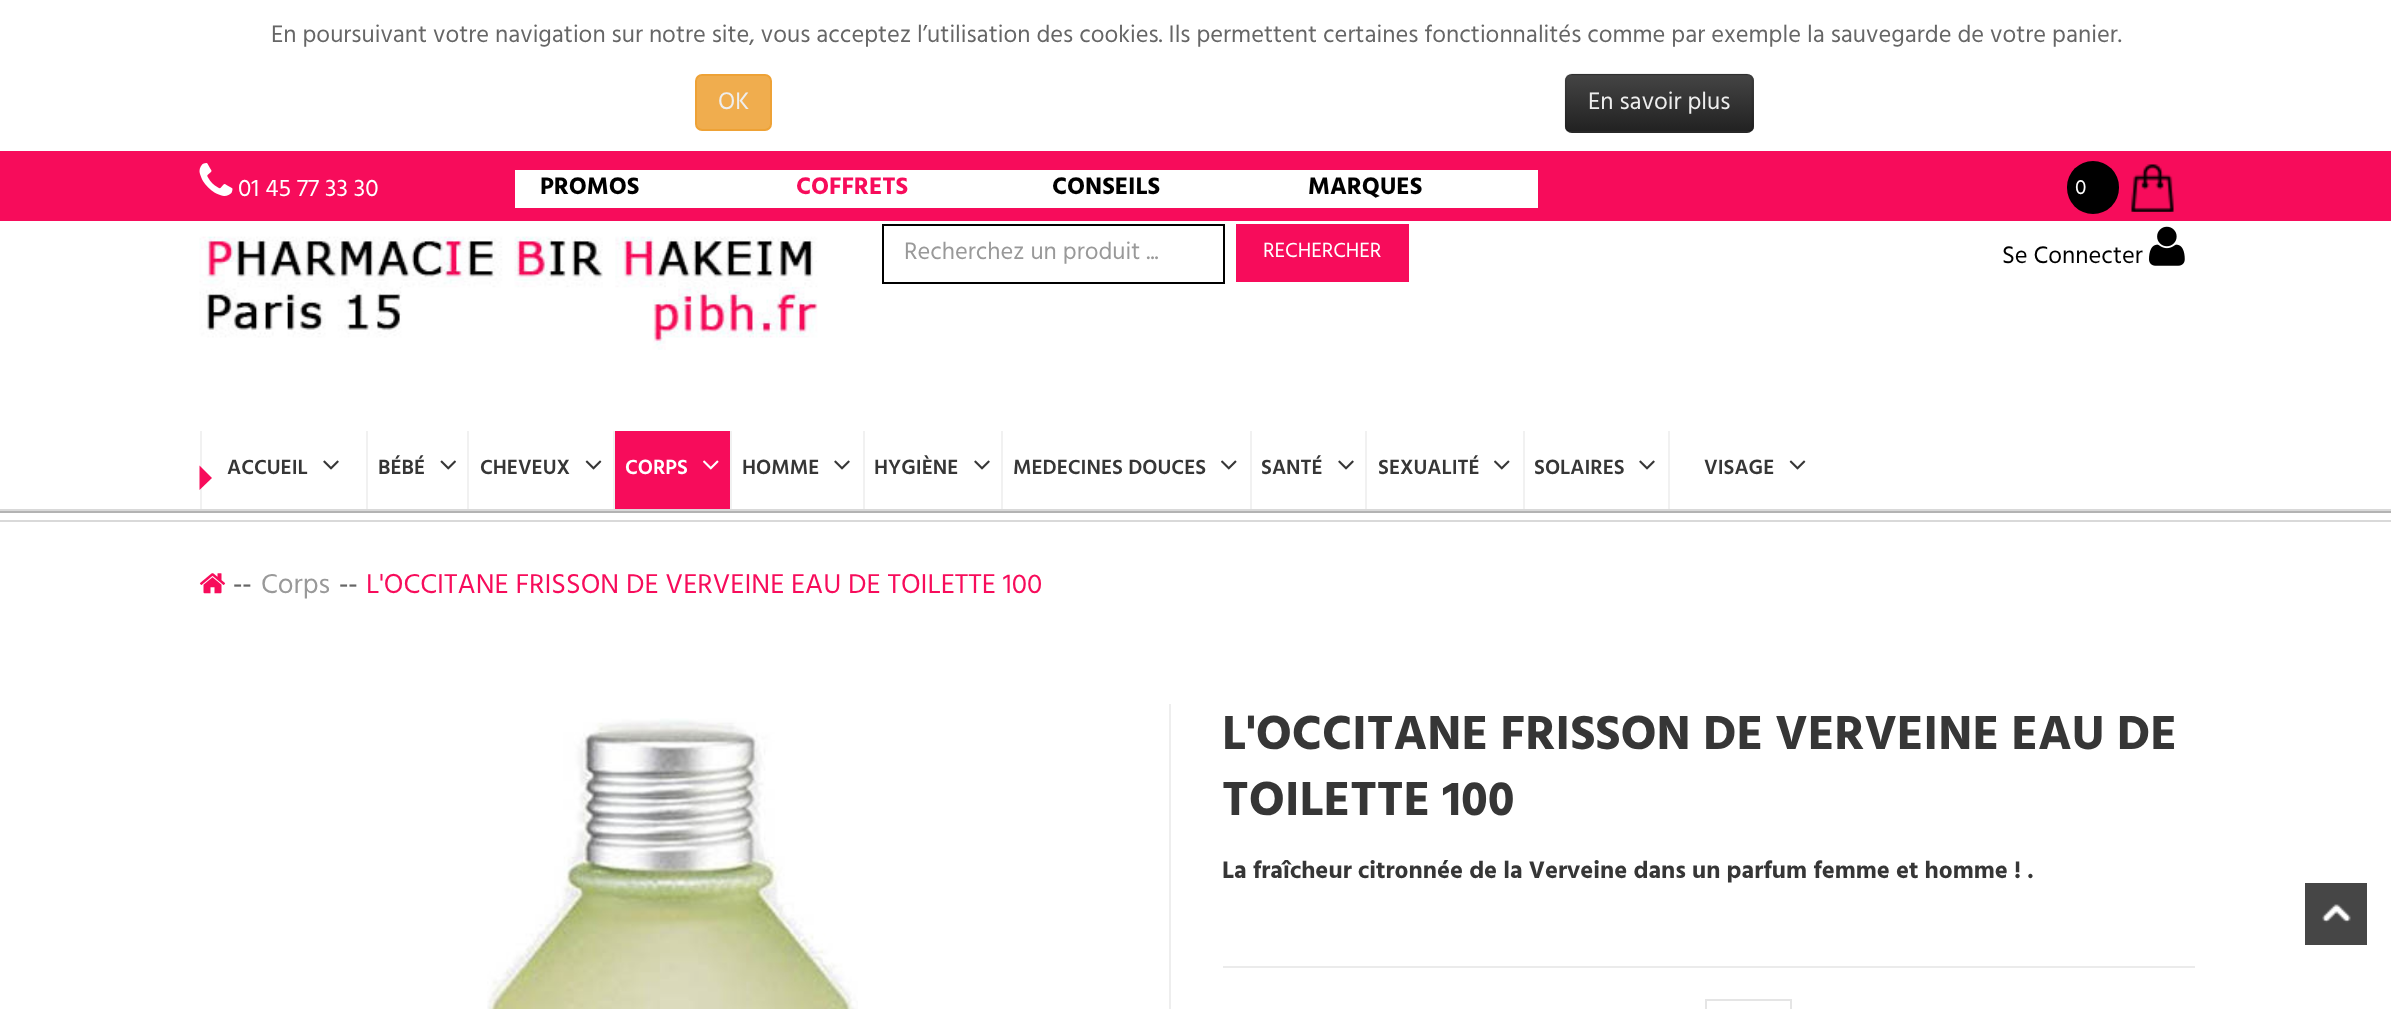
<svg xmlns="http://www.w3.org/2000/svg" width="2391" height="1009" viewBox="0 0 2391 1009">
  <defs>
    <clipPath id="clip1"><rect x="1565" y="74" width="189" height="59" rx="7"/></clipPath>
    <linearGradient id="g1" gradientUnits="userSpaceOnUse" x1="1659" y1="75" x2="1659" y2="131"><stop offset="0" stop-color="rgb(68,68,68)"/><stop offset="1" stop-color="rgb(34,34,34)"/></linearGradient>
  </defs>
  <rect width="100%" height="100%" fill="rgb(255,255,255)"/>
  <text x="271" y="42" font-family="Hind" font-size="24.5" fill="rgb(102,102,102)">En poursuivant votre navigation sur notre site, vous acceptez l’utilisation des cookies. Ils permettent certaines fonctionnalités comme par exemple la sauvegarde de votre panier.</text>
  <rect x="696" y="75" width="75" height="55" rx="6" fill="rgb(240,173,78)" stroke="rgb(238,162,54)" stroke-width="2"/>
  <text x="718" y="109" font-family="Hind" font-size="24.5" fill="rgb(238,238,238)">OK</text>
  <rect x="1565" y="74" width="189" height="59" rx="7" fill="rgb(54,54,54)"/>
  <g clip-path="url(#clip1)">
    <rect x="1565" y="75" width="189" height="56" fill="url(#g1)"/>
  </g>
  <path d="M1751 130.5C1749.5 131.5 1748 132 1746.5 132H1571.5C1570 132 1568.5 131.5 1567 130.5" fill="none" stroke="rgba(0,0,0,0.25)" stroke-width="1.8"/>
  <path d="M1567 130.5C1566 129 1565.5 127.5 1565.5 126V80.5C1565.5 79 1566 77.5 1567 76C1568.5 75 1570 74.5 1571.5 74.5H1746.5C1748 74.5 1749.5 75 1751 76C1752 77.5 1752.5 79 1752.5 80.5V126C1752.5 127.5 1752 129 1751 130.5" fill="none" stroke="rgba(0,0,0,0.1)" stroke-width="1.8"/>
  <text x="1588" y="109" font-family="Hind" font-size="24.5" fill="rgb(238,238,238)">En savoir plus</text>
  <rect x="0" y="151" width="2391" height="70" fill="rgb(247,12,91)"/>
  <image x="199" y="163" width="34" height="33" href="pic1.png"/>
  <text x="238" y="196" font-family="Hind" font-size="24.5" fill="rgb(255,255,255)">01 45 77 33 30</text>
  <rect x="515" y="170" width="1023" height="38" fill="rgb(255,255,255)"/>
  <text x="540" y="194" font-family="Hind" font-size="24.5" font-weight="bold" fill="rgb(0,0,0)">PROMOS</text>
  <text x="796" y="194" font-family="Hind" font-size="24.5" font-weight="bold" fill="rgb(247,12,91)">COFFRETS</text>
  <g font-family="Hind" font-size="24.5" font-weight="bold" fill="rgb(0,0,0)">
    <text x="1052" y="194">CONSEILS</text>
    <text x="1308" y="194">MARQUES</text>
  </g>
  <rect x="2067" y="161" width="52" height="53" rx="26" fill="rgb(0,0,0)"/>
  <text x="2075" y="194" font-family="Hind" font-size="21" fill="rgb(255,255,255)">0</text>
  <image x="2131" y="164" width="43" height="48" href="pic2.png"/>
  <image x="199" y="236" width="619" height="114" href="pic3.png"/>
  <rect x="200" y="431" width="2" height="78" fill="rgb(241,241,241)"/>
  <path d="M199.5 490V465.5L212 478Z" fill="rgb(247,12,91)"/>
  <rect x="883" y="225" width="341" height="58" fill="none" stroke="rgb(0,0,0)" stroke-width="2"/>
  <text x="904" y="259" font-family="Hind" font-size="24.5" fill="rgb(153,153,153)">Recherchez un produit ...</text>
  <rect x="1236" y="224" width="173" height="58" fill="rgb(247,12,91)"/>
  <text x="1263" y="257" font-family="Hind" font-size="21" fill="rgb(255,255,255)">RECHERCHER</text>
  <text x="2002" y="263" font-family="Hind" font-size="24.5" fill="rgb(0,0,0)">Se Connecter</text>
  <image x="2149" y="226" width="36" height="40" href="pic4.png"/>
  <rect x="0" y="511" width="2391" height="2" fill="rgb(179,179,179)"/>
  <rect x="0" y="509" width="2391" height="2" fill="rgb(217,217,217)"/>
  <text x="227" y="474" font-family="Hind" font-size="21" font-weight="600" fill="rgb(54,54,54)">ACCUEIL</text>
  <image x="323" y="460" width="16" height="10" href="pic5.png"/>
  <rect x="366" y="431" width="2" height="78" fill="rgb(241,241,241)"/>
  <text x="378" y="474" font-family="Hind" font-size="21" font-weight="600" fill="rgb(54,54,54)">BÉBÉ</text>
  <image x="440" y="460" width="16" height="10" href="pic6.png"/>
  <rect x="467" y="431" width="2" height="78" fill="rgb(241,241,241)"/>
  <text x="480" y="474" font-family="Hind" font-size="21" font-weight="600" fill="rgb(54,54,54)">CHEVEUX</text>
  <image x="585" y="460" width="17" height="10" href="pic7.png"/>
  <rect x="615" y="431" width="115" height="78" fill="rgb(247,12,91)"/>
  <rect x="613" y="431" width="2" height="78" fill="rgb(241,241,241)"/>
  <text x="625" y="474" font-family="Hind" font-size="21" font-weight="600" fill="rgb(255,255,255)">CORPS</text>
  <image x="703" y="460" width="16" height="10" href="pic8.png"/>
  <rect x="730" y="431" width="2" height="78" fill="rgb(241,241,241)"/>
  <text x="742" y="474" font-family="Hind" font-size="21" font-weight="600" fill="rgb(54,54,54)">HOMME</text>
  <image x="834" y="460" width="16" height="10" href="pic5.png"/>
  <rect x="863" y="431" width="2" height="78" fill="rgb(241,241,241)"/>
  <text x="874" y="474" font-family="Hind" font-size="21" font-weight="600" fill="rgb(54,54,54)">HYGIÈNE</text>
  <image x="974" y="460" width="16" height="10" href="pic5.png"/>
  <rect x="1001" y="431" width="2" height="78" fill="rgb(241,241,241)"/>
  <text x="1013" y="474" font-family="Hind" font-size="21" font-weight="600" fill="rgb(54,54,54)">MEDECINES DOUCES</text>
  <image x="1221" y="460" width="16" height="10" href="pic9.png"/>
  <rect x="1250" y="431" width="2" height="78" fill="rgb(241,241,241)"/>
  <text x="1261" y="474" font-family="Hind" font-size="21" font-weight="600" fill="rgb(54,54,54)">SANTÉ</text>
  <image x="1338" y="460" width="16" height="10" href="pic5.png"/>
  <rect x="1365" y="431" width="2" height="78" fill="rgb(241,241,241)"/>
  <text x="1378" y="474" font-family="Hind" font-size="21" font-weight="600" fill="rgb(54,54,54)">SEXUALITÉ</text>
  <image x="1494" y="460" width="16" height="10" href="pic9.png"/>
  <rect x="1523" y="431" width="2" height="78" fill="rgb(241,241,241)"/>
  <text x="1534" y="474" font-family="Hind" font-size="21" font-weight="600" fill="rgb(54,54,54)">SOLAIRES</text>
  <image x="1639" y="460" width="16" height="10" href="pic5.png"/>
  <rect x="1668" y="431" width="2" height="78" fill="rgb(241,241,241)"/>
  <text x="1704" y="474" font-family="Hind" font-size="21" font-weight="600" fill="rgb(54,54,54)">VISAGE</text>
  <image x="1789" y="460" width="17" height="10" href="pic7.png"/>
  <rect x="0" y="520" width="2391" height="2" fill="rgb(217,217,217)"/>
  <image x="199" y="573" width="27" height="21" href="pic10.png"/>
  <text x="233" y="593" font-family="Liberation Sans" font-size="28" fill="rgb(102,102,102)">--</text>
  <text x="261" y="593" font-family="Hind" font-size="28" fill="rgb(153,153,153)">Corps</text>
  <text x="339" y="593" font-family="Liberation Sans" font-size="28" fill="rgb(102,102,102)">--</text>
  <text x="366" y="593" font-family="Hind" font-size="28" fill="rgb(247,12,91)">L'OCCITANE FRISSON DE VERVEINE EAU DE TOILETTE 100</text>
  <rect x="1169" y="704" width="2" height="305" fill="rgb(238,238,238)"/>
  <image x="487" y="718" width="371" height="291" href="pic11.png"/>
  <g font-family="Hind" font-size="49" font-weight="bold" fill="rgb(54,54,54)">
    <text>
      <tspan x="1222" y="749">L'OCCITANE FRISSON DE VERVEINE EAU DE</tspan>
      <tspan x="1222" y="815">TOILETTE 100</tspan>
    </text>
  </g>
  <text x="1222" y="878" font-family="Hind" font-size="24.5" font-weight="bold" fill="rgb(54,54,54)">La fraîcheur citronnée de la Verveine dans un parfum femme et homme ! .</text>
  <rect x="1223" y="966" width="972" height="2" fill="rgb(235,235,235)"/>
  <rect x="1706" y="1000" width="85" height="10" fill="none" stroke="rgb(229,229,229)" stroke-width="2"/>
  <rect x="2305" y="883" width="62" height="62" fill="rgb(70,70,70)"/>
  <image x="2322" y="904" width="29" height="19" href="pic12.png"/>
</svg>
